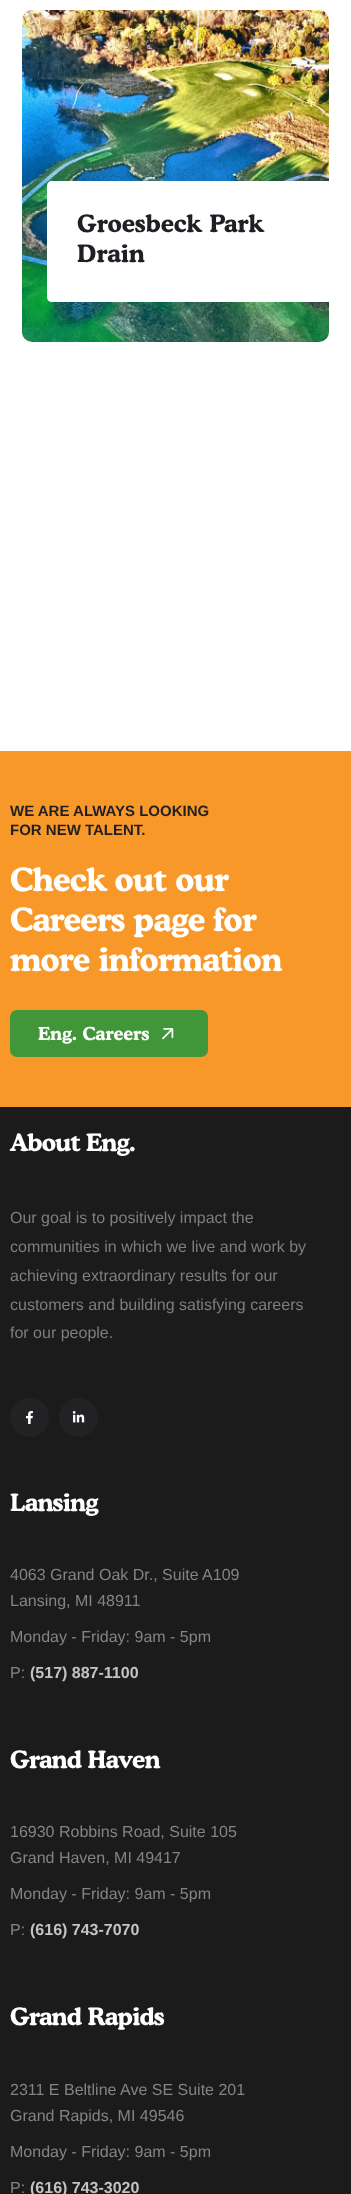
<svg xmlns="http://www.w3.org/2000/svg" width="351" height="2194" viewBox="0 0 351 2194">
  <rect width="100%" height="100%" fill="rgb(255,255,255)"/>
  <image x="22" y="10" width="307" height="332" href="pic1.png"/>
  <path d="M52 181H329V302H52C49 302 47 300 47 297V186C47 183 49 181 52 181Z" fill="rgb(255,255,255)"/>
  <g font-family="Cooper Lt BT" font-size="24" font-weight="bold" fill="rgb(31,31,37)">
    <text>
      <tspan x="77" y="232" word-spacing="1">Groesbeck Park</tspan>
      <tspan x="77" y="262">Drain</tspan>
    </text>
  </g>
  <rect x="0" y="751" width="351" height="356" fill="rgb(248,152,41)"/>
  <g font-family="Liberation Sans" font-size="15" font-weight="bold" fill="rgb(31,31,37)">
    <text>
      <tspan x="10" y="816">WE ARE ALWAYS LOOKING</tspan>
      <tspan x="10" y="835">FOR NEW TALENT.</tspan>
    </text>
  </g>
  <g font-family="Cooper Lt BT" font-size="32" font-weight="bold" letter-spacing="-0.6" fill="rgb(255,255,255)">
    <text>
      <tspan x="10" y="891">Check out our</tspan>
      <tspan x="10" y="931">Careers page for</tspan>
      <tspan x="10" y="971">more information</tspan>
    </text>
  </g>
  <rect x="10" y="1010" width="198" height="47" rx="7" fill="rgb(65,150,57)"/>
  <text x="38" y="1040" font-family="Cooper Lt BT" font-size="18" font-weight="bold" fill="rgb(255,255,255)">Eng. Careers</text>
  <image x="162" y="1028" width="12" height="12" href="pic2.png"/>
  <rect x="0" y="1107" width="351" height="1087" fill="rgb(27,27,27)"/>
  <text x="10" y="1151" font-family="Cooper Lt BT" font-size="24" font-weight="bold" letter-spacing="-0.75" fill="rgb(255,255,255)">About Eng.</text>
  <g font-family="Liberation Sans" font-size="16" fill="rgb(126,126,126)">
    <text>
      <tspan x="10" y="1223">Our goal is to positively impact the</tspan>
      <tspan x="10" y="1252">communities in which we live and work by</tspan>
      <tspan x="10" y="1281">achieving extraordinary results for our</tspan>
      <tspan x="10" y="1310">customers and building satisfying careers</tspan>
      <tspan x="10" y="1338">for our people.</tspan>
    </text>
  </g>
  <circle cx="29.5" cy="1417.5" r="19.5" fill="rgb(34,34,36)"/>
  <image x="26" y="1411" width="7" height="13" href="pic3.png"/>
  <circle cx="78.5" cy="1417.5" r="19.5" fill="rgb(34,34,36)"/>
  <image x="72" y="1411" width="13" height="12" href="pic4.png"/>
  <text x="10" y="1511" font-family="Cooper Lt BT" font-size="24" font-weight="bold" letter-spacing="-0.75" fill="rgb(255,255,255)">Lansing</text>
  <g font-family="Liberation Sans" font-size="16" fill="rgb(132,132,132)">
    <text>
      <tspan x="10" y="1580">4063 Grand Oak Dr., Suite A109</tspan>
      <tspan x="10" y="1606">Lansing, MI 48911</tspan>
    </text>
    <text x="10" y="1642">Monday - Friday: 9am - 5pm</text>
    <text x="10" y="1678">P:</text>
  </g>
  <text x="30" y="1678" font-family="Liberation Sans" font-size="16" font-weight="bold" fill="rgb(195,195,195)">(517) 887-1100</text>
  <text x="10" y="1768" font-family="Cooper Lt BT" font-size="24" font-weight="bold" letter-spacing="-0.75" fill="rgb(255,255,255)">Grand Haven</text>
  <g font-family="Liberation Sans" font-size="16" fill="rgb(132,132,132)">
    <text>
      <tspan x="10" y="1837">16930 Robbins Road, Suite 105</tspan>
      <tspan x="10" y="1863">Grand Haven, MI 49417</tspan>
    </text>
    <text x="10" y="1899">Monday - Friday: 9am - 5pm</text>
    <text x="10" y="1935">P:</text>
  </g>
  <text x="30" y="1935" font-family="Liberation Sans" font-size="16" font-weight="bold" fill="rgb(195,195,195)">(616) 743-7070</text>
  <text x="10" y="2025" font-family="Cooper Lt BT" font-size="24" font-weight="bold" letter-spacing="-0.75" fill="rgb(255,255,255)">Grand Rapids</text>
  <g font-family="Liberation Sans" font-size="16" fill="rgb(132,132,132)">
    <text>
      <tspan x="10" y="2095">2311 E Beltline Ave SE Suite 201</tspan>
      <tspan x="10" y="2121">Grand Rapids, MI 49546</tspan>
    </text>
    <text x="10" y="2157">Monday - Friday: 9am - 5pm</text>
    <text x="10" y="2193">P:</text>
  </g>
  <text x="30" y="2193" font-family="Liberation Sans" font-size="16" font-weight="bold" fill="rgb(195,195,195)">(616) 743-3020</text>
</svg>
